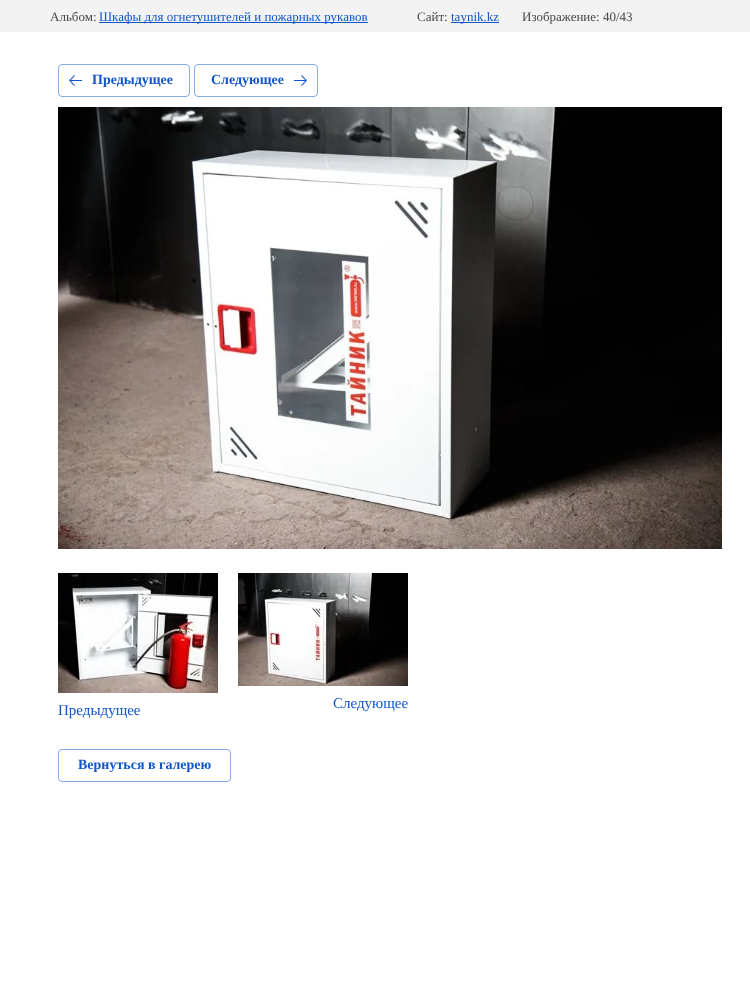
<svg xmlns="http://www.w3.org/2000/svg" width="750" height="989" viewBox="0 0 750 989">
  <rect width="100%" height="100%" fill="rgb(255,255,255)"/>
  <rect x="0" y="0" width="750" height="32" fill="rgb(243,243,243)"/>
  <text x="50" y="21" font-family="Liberation Serif" font-size="13" fill="rgb(72,72,72)">Альбом:</text>
  <rect x="99" y="22" width="269" height="1" fill="rgb(17,85,204)"/>
  <text x="99" y="21" font-family="Liberation Serif" font-size="13" fill="rgb(17,85,204)">Шкафы для огнетушителей и пожарных рукавов</text>
  <text x="417" y="21" font-family="Liberation Serif" font-size="13" fill="rgb(72,72,72)">Сайт:</text>
  <rect x="451" y="22" width="48" height="1" fill="rgb(17,85,204)"/>
  <text x="451" y="21" font-family="Liberation Serif" font-size="13" fill="rgb(17,85,204)">taynik.kz</text>
  <text x="522" y="21" font-family="Liberation Serif" font-size="13" fill="rgb(72,72,72)">Изображение: 40/43</text>
  <rect x="58.5" y="64.5" width="131" height="32" rx="3.5" fill="none" stroke="rgb(136,170,230)"/>
  <image x="69" y="75" width="13" height="11" href="pic1.png"/>
  <text x="92" y="84" font-family="Liberation Serif" font-size="14" font-weight="bold" fill="rgb(17,85,204)">Предыдущее</text>
  <rect x="194.5" y="64.5" width="123" height="32" rx="3.5" fill="none" stroke="rgb(136,170,230)"/>
  <text x="211" y="84" font-family="Liberation Serif" font-size="14" font-weight="bold" fill="rgb(17,85,204)">Следующее</text>
  <image x="294" y="75" width="13" height="11" href="pic2.png"/>
  <image x="58" y="107" width="664" height="442" href="pic3.png"/>
  <image x="58" y="573" width="160" height="120" href="pic4.png"/>
  <text x="58" y="715" font-family="Liberation Serif" font-size="15" fill="rgb(17,85,204)">Предыдущее</text>
  <image x="238" y="573" width="170" height="113" href="pic5.png"/>
  <text x="333" y="708" font-family="Liberation Serif" font-size="15" fill="rgb(17,85,204)">Следующее</text>
  <rect x="58.5" y="749.5" width="172" height="32" rx="3.5" fill="none" stroke="rgb(136,170,230)"/>
  <text x="78" y="769" font-family="Liberation Serif" font-size="14" font-weight="bold" fill="rgb(17,85,204)">Вернуться в галерею</text>
</svg>
